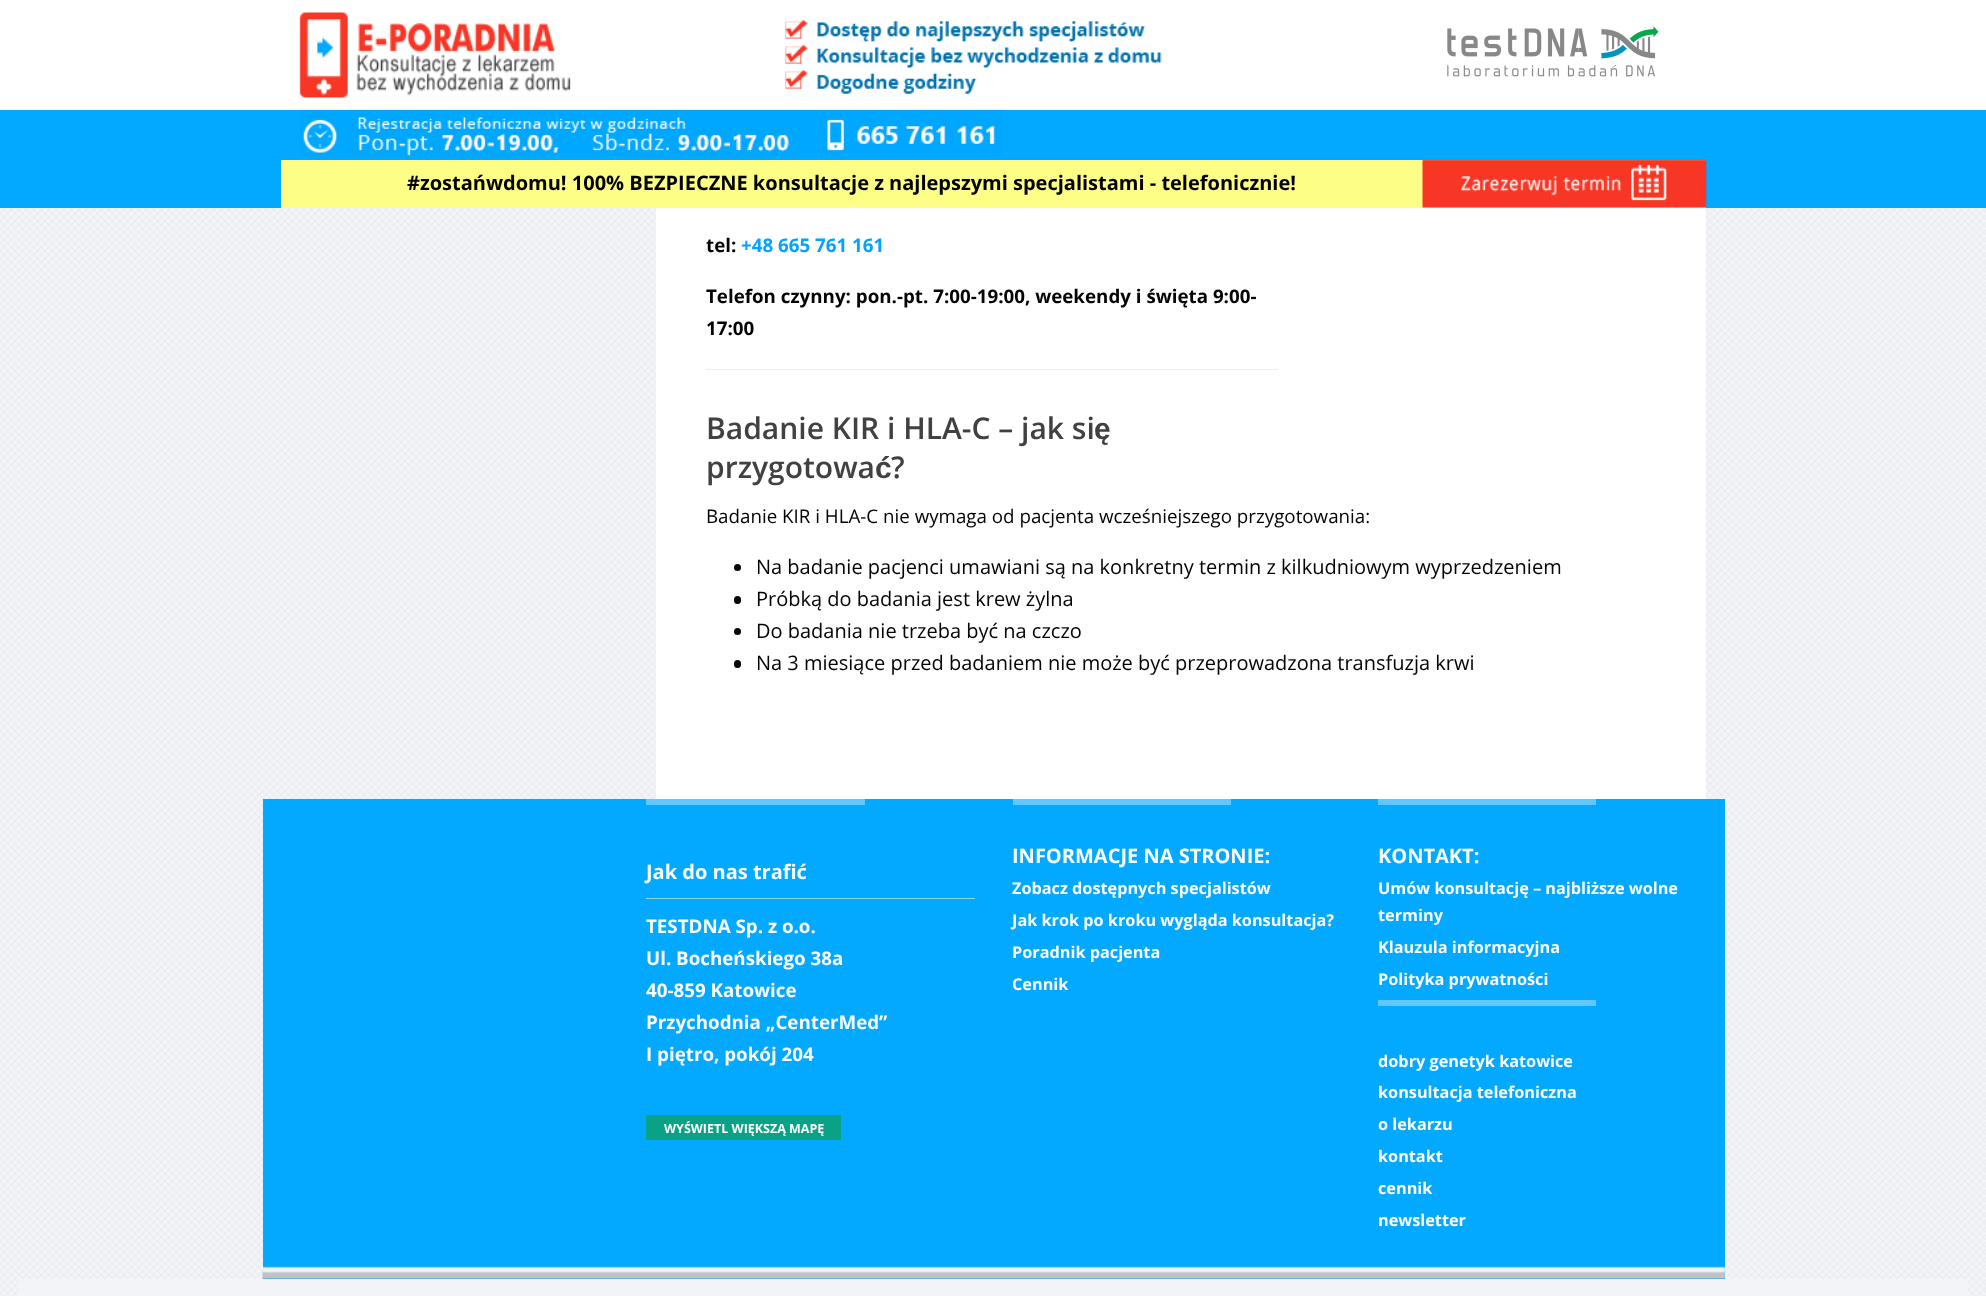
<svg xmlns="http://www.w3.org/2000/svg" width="1986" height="1296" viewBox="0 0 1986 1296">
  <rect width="100%" height="100%" fill="rgb(255,255,255)"/>
  <image x="0" y="0" width="1986" height="1296" href="pic1.png"/>
  <rect x="0" y="0" width="1986" height="110" fill="rgba(255,255,255,0.99)"/>
  <image x="299" y="12" width="272" height="86" href="pic2.png"/>
  <image x="784" y="19" width="378" height="75" href="pic3.png"/>
  <image x="1447" y="26" width="212" height="51" href="pic4.png"/>
  <rect x="0" y="110" width="1986" height="98" fill="rgba(0,167,255,0.99)"/>
  <image x="300" y="109" width="703" height="47" href="pic5.png"/>
  <rect x="281" y="160" width="1425" height="48" fill="rgb(252,254,133)"/>
  <text x="407" y="190" font-family="Open Sans" font-size="20" font-weight="bold" fill="rgb(3,3,3)">#zostańwdomu! 100% BEZPIECZNE konsultacje z najlepszymi specjalistami - telefonicznie!</text>
  <image x="1422" y="159" width="285" height="49" href="pic6.png"/>
  <rect x="656" y="208" width="1050" height="591" fill="rgba(255,255,255,0.99)"/>
  <text x="706" y="252" font-family="Open Sans" font-size="18.75" font-weight="bold" fill="rgb(3,3,3)">tel:</text>
  <text x="741" y="252" font-family="Open Sans" font-size="18.75" font-weight="bold" fill="rgb(3,163,255)">+48 665 761 161</text>
  <g font-family="Open Sans" font-size="18.75" font-weight="bold" fill="rgb(3,3,3)">
    <text>
      <tspan x="706" y="303">Telefon czynny: pon.-pt. 7:00-19:00, weekendy i święta 9:00-</tspan>
      <tspan x="706" y="335">17:00</tspan>
    </text>
  </g>
  <rect x="706" y="369" width="572" height="1" fill="rgb(238,238,238)"/>
  <text x="706" y="439" font-family="Open Sans" font-size="30" font-weight="600" fill="rgb(65,65,65)">Badanie KIR i HLA-C – jak si</text>
  <text x="1094" y="439" font-family="Liberation Sans" font-size="30" font-weight="bold" fill="rgb(65,65,65)">ę</text>
  <text x="706" y="478" font-family="Open Sans" font-size="30" font-weight="600" fill="rgb(65,65,65)">przygotowa</text>
  <text x="875" y="478" font-family="Liberation Sans" font-size="30" font-weight="bold" fill="rgb(65,65,65)">ć</text>
  <text x="891" y="478" font-family="Open Sans" font-size="30" font-weight="600" fill="rgb(65,65,65)">?</text>
  <text x="706" y="523" font-family="Open Sans" font-size="18.75" fill="rgb(3,3,3)">Badanie KIR i HLA-C nie wymaga od pacjenta wcześniejszego przygotowania:</text>
  <circle cx="737.5" cy="567.5" r="3.5" fill="rgb(3,3,3)"/>
  <text x="756" y="574" font-family="Open Sans" font-size="20" fill="rgb(3,3,3)">Na badanie pacjenci umawiani są na konkretny termin z kilkudniowym wyprzedzeniem</text>
  <rect x="734" y="596" width="7" height="8" rx="3.5" fill="rgb(3,3,3)"/>
  <text x="756" y="606" font-family="Open Sans" font-size="20" fill="rgb(3,3,3)">Próbką do badania jest krew żylna</text>
  <circle cx="737.5" cy="631.5" r="3.5" fill="rgb(3,3,3)"/>
  <text x="756" y="638" font-family="Open Sans" font-size="20" fill="rgb(3,3,3)">Do badania nie trzeba być na czczo</text>
  <rect x="734" y="660" width="7" height="8" rx="3.5" fill="rgb(3,3,3)"/>
  <text x="756" y="670" font-family="Open Sans" font-size="20" fill="rgb(3,3,3)">Na 3 miesiące przed badaniem nie może być przeprowadzona transfuzja krwi</text>
  <rect x="263" y="799" width="1462" height="480" fill="rgba(0,167,255,0.99)"/>
  <image x="262" y="1266" width="1463" height="13" href="pic7.png"/>
  <rect x="646" y="799" width="219" height="6" fill="rgb(96,200,255)"/>
  <rect x="646" y="898" width="329" height="1" fill="rgb(141,216,203)"/>
  <text x="646" y="879" font-family="Open Sans" font-size="20" font-weight="bold" fill="rgb(252,254,255)">Jak do nas trafić</text>
  <g font-family="Open Sans" font-size="18.75" font-weight="bold" fill="rgb(252,254,255)">
    <text>
      <tspan x="646" y="933">TESTDNA Sp. z o.o.</tspan>
      <tspan x="646" y="965">Ul. Bocheńskiego 38a</tspan>
      <tspan x="646" y="997">40-859 Katowice</tspan>
      <tspan x="646" y="1029">Przychodnia „CenterMed”</tspan>
      <tspan x="646" y="1061">I piętro, pokój 204</tspan>
    </text>
  </g>
  <rect x="646" y="1115" width="195" height="25" fill="rgb(10,162,134)"/>
  <text x="664" y="1133" font-family="Open Sans" font-size="12.5" font-weight="bold" fill="rgb(252,254,255)">WYŚWIETL WIĘKSZĄ MAPĘ</text>
  <rect x="1013" y="799" width="218" height="6" fill="rgb(96,200,255)"/>
  <text x="1012" y="863" font-family="Open Sans" font-size="20" font-weight="bold" fill="rgb(252,254,255)">INFORMACJE NA STRONIE:</text>
  <g font-family="Open Sans" font-size="16.25" font-weight="bold" fill="rgb(252,254,255)">
    <text>
      <tspan x="1012" y="894">Zobacz dostępnych specjalistów</tspan>
      <tspan x="1012" y="926">Jak krok po kroku wygląda konsultacja?</tspan>
      <tspan x="1012" y="958">Poradnik pacjenta</tspan>
      <tspan x="1012" y="990">Cennik</tspan>
    </text>
  </g>
  <rect x="1378" y="799" width="218" height="6" fill="rgb(96,200,255)"/>
  <text x="1378" y="863" font-family="Open Sans" font-size="20" font-weight="bold" fill="rgb(252,254,255)">KONTAKT:</text>
  <g font-family="Open Sans" font-size="16.25" font-weight="bold" fill="rgb(252,254,255)">
    <text>
      <tspan x="1378" y="894">Umów konsultację – najbliższe wolne</tspan>
      <tspan x="1378" y="921">terminy</tspan>
      <tspan x="1378" y="953">Klauzula informacyjna</tspan>
      <tspan x="1378" y="985">Polityka prywatności</tspan>
    </text>
  </g>
  <rect x="1378" y="1000" width="218" height="6" fill="rgb(96,200,255)"/>
  <g font-family="Open Sans" font-size="16.25" font-weight="bold" fill="rgb(252,254,255)">
    <text>
      <tspan x="1378" y="1067">dobry genetyk katowice</tspan>
      <tspan x="1378" y="1098">konsultacja telefoniczna</tspan>
      <tspan x="1378" y="1130">o lekarzu</tspan>
      <tspan x="1378" y="1162">kontakt</tspan>
      <tspan x="1378" y="1194">cennik</tspan>
      <tspan x="1378" y="1226">newsletter</tspan>
    </text>
  </g>
  <rect x="19" y="1279" width="1949" height="17" fill="rgba(242,244,247,0.99)"/>
</svg>
